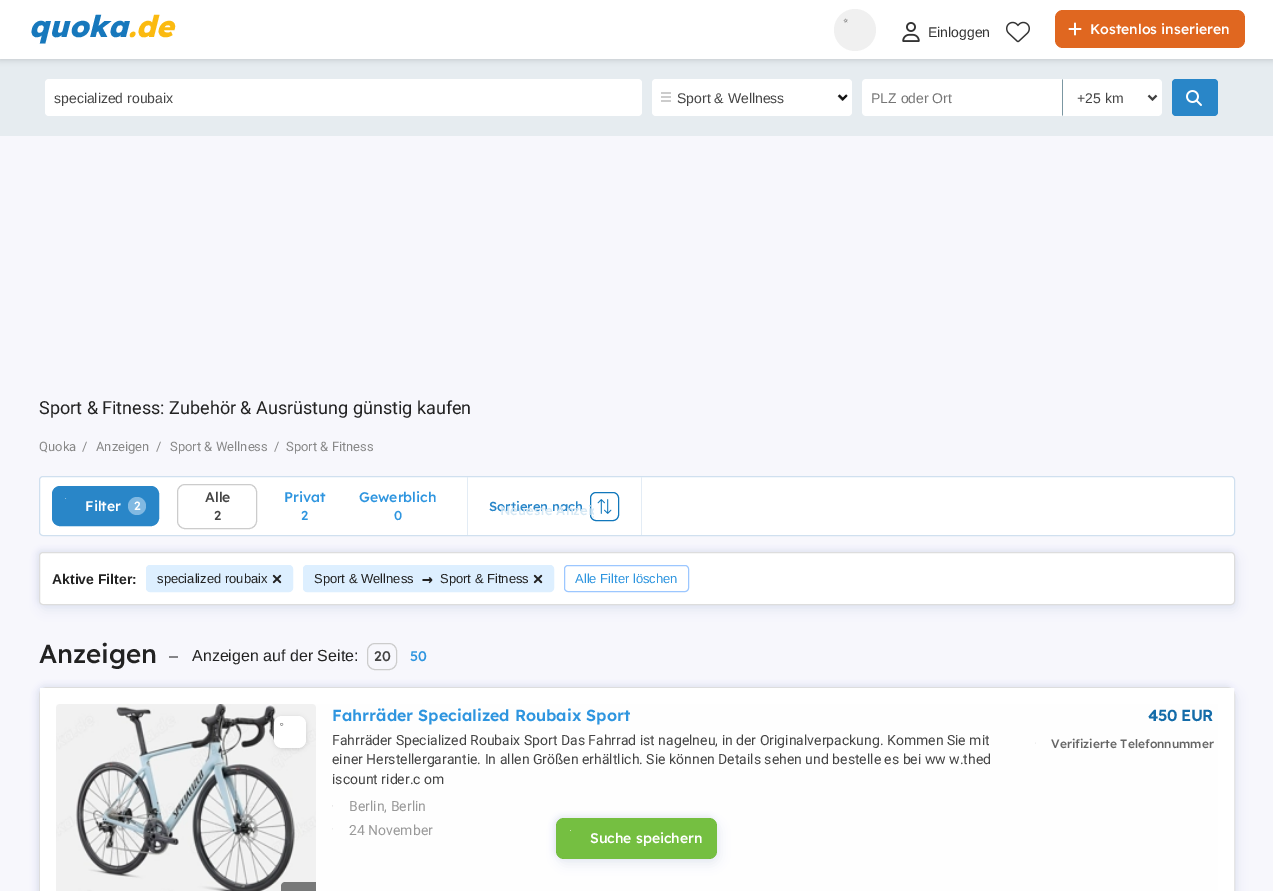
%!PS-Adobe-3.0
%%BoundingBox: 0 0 1273 891
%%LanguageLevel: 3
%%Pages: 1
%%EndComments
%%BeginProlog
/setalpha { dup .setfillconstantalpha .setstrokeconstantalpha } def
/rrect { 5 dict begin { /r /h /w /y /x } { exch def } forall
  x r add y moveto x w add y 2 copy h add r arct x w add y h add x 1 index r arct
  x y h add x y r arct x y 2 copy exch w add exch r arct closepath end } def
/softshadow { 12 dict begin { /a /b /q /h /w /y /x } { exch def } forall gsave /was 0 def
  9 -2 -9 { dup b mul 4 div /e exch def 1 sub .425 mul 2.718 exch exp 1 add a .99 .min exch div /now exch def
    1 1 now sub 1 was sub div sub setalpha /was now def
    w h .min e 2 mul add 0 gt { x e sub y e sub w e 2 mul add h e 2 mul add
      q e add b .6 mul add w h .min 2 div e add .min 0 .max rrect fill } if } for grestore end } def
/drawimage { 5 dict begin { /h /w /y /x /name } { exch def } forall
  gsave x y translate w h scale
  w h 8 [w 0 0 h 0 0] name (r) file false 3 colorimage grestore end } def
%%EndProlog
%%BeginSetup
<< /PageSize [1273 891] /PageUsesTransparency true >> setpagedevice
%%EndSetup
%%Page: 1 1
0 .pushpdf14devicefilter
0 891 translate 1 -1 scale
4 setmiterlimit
0.969 0.969 0.988 setrgbcolor
0 0 1273 891 rectfill
0.902 0.925 0.941 setrgbcolor
0 59 1273 77 rectfill
0.125 0.129 0.141 setrgbcolor
0 -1 1273 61 0 3 0.18 softshadow
1 setgray
0 0 1273 59 rectfill
0.941 setgray
newpath 855 30 21 0 360 arc closepath fill
(images/1.raw) 843 18 5 5 drawimage
(images/2.raw) 902 22 18 20 drawimage
(images/3.raw) 1006 21 24 22 drawimage
0.878 0.404 0.125 setrgbcolor
1055 10 190 38 8 rrect fill
(images/4.raw) 1068 22 14 14 drawimage
1 setgray
45 79 597 37 4 rrect fill
652 79 200 37 4 rrect fill
(images/5.raw) 661 92 187 10 drawimage
0.75 setalpha
0 setgray
2 setlinewidth
newpath 838.5 95.5 moveto 842.5 99.5 lineto 846.5 95.5 lineto stroke
1 setalpha
1 setgray
newpath 866 79 moveto 1062 79 lineto 1062 116 lineto 866 116 lineto 864 116 862 114 862 112 curveto 862 83 lineto 862 81 864 79 866 79 curveto closepath fill
newpath 1062 79 moveto 1158 79 lineto 1160 79 1162 81 1162 83 curveto 1162 112 lineto 1162 114 1160 116 1158 116 curveto 1062 116 lineto closepath fill
0.482 0.592 0.635 setrgbcolor
newpath 1062 79 moveto 1062 116 lineto 1063 115 lineto 1063 80 lineto closepath fill
0.251 setgray
newpath 1148.5 95.5 moveto 1152.5 99.5 lineto 1156.5 95.5 lineto stroke
0.161 0.525 0.784 setrgbcolor
1172 79 46 37 4 rrect fill
(images/6.raw) 1186 90 16 16 drawimage
1 setgray
39.5 476.5 1195 59 3.5 rrect gsave fill grestore
0.816 0.878 0.937 setrgbcolor
1 setlinewidth
stroke
0.161 0.525 0.784 setrgbcolor
52.5 486.5 106 39 7.5 rrect gsave fill grestore
stroke
(images/7.raw) 65 498 2 1 drawimage
0.506 0.725 0.886 setrgbcolor
newpath 137 506 9 0 360 arc closepath fill
0.8 setgray
177.5 484.5 79 44 7.5 rrect stroke
0.89 0.925 0.961 setrgbcolor
467 477 1 58 rectfill
0.067 0.467 0.733 setrgbcolor
590.5 492.5 28 28 5.5 rrect stroke
(images/8.raw) 597 499 15 15 drawimage
0.89 0.925 0.961 setrgbcolor
641 477 1 58 rectfill
0.604 0.659 0.753 setrgbcolor
41 557 1196 53 4 5.5 0.2 softshadow
37 550 1196 53 4 3 0.2 softshadow
1 setgray
39.5 552.5 1195 52 3.5 rrect gsave fill grestore
0.867 setgray
stroke
0.867 0.937 1 setrgbcolor
146.5 565.5 146 26 3.5 rrect gsave fill grestore
stroke
(images/9.raw) 272 574 10 10 drawimage
303.5 565.5 250 26 3.5 rrect gsave fill grestore
stroke
(images/9.raw) 533 574 10 10 drawimage
0.612 0.78 1 setrgbcolor
564.5 565.5 124 26 3.5 rrect stroke
0.8 setgray
367.5 643.5 29 26 7.5 rrect stroke
0.604 0.659 0.753 setrgbcolor
41 692 1196 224 8 5.5 0.2 softshadow
37 685 1196 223 8 3 0.2 softshadow
0.996 setgray
39.5 687.5 1195 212 7.5 rrect gsave fill grestore
0.867 setgray
stroke
1 setgray
16 setlinewidth
48 696 1178 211 rectstroke
(images/10.raw) 56 704 260 187 drawimage
0.667 setgray
274 717 32 32 8 2.5 0.5 softshadow
1 setgray
274 716 32 32 8 rrect fill
(images/11.raw) 280 723 4 3 drawimage
0.471 0.475 0.475 setrgbcolor
newpath 285 882 moveto 316 882 lineto 316 891 lineto 316 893 314 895 312 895 curveto 281 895 lineto 281 886 lineto 281 884 283 882 285 882 curveto closepath fill
(images/12.raw) 1035 742 1 2 drawimage
(images/13.raw) 332 805 1 2 drawimage
(images/14.raw) 332 828 1 2 drawimage
gsave
newpath 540 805 moveto 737 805 lineto 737 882 lineto 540 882 lineto closepath 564 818 moveto 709 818 lineto 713.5 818 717 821.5 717 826 curveto 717 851 lineto 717 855.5 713.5 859 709 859 curveto 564 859 lineto 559.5 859 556 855.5 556 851 curveto 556 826 lineto 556 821.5 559.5 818 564 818 curveto closepath eoclip newpath
0.604 0.659 0.753 setrgbcolor
558 823 161 41 8 5.5 0.2 softshadow
grestore
gsave
newpath 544 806 moveto 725 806 lineto 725 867 lineto 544 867 lineto closepath 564 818 moveto 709 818 lineto 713.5 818 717 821.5 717 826 curveto 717 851 lineto 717 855.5 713.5 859 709 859 curveto 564 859 lineto 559.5 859 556 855.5 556 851 curveto 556 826 lineto 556 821.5 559.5 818 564 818 curveto closepath eoclip newpath
0.604 0.659 0.753 setrgbcolor
554 816 161 41 8 3 0.2 softshadow
grestore
0.85 setalpha
0.365 0.706 0.125 setrgbcolor
556 818 161 41 8 rrect fill
1 setalpha
0.804 0.91 0.733 setrgbcolor
570 830 1 1 rectfill
/Lexend-ExtraBoldItalic [30 0 0 -30 0 0] selectfont
0.09 0.471 0.737 setrgbcolor
29 37 moveto (quoka) show
0.984 0.729 0.063 setrgbcolor
128 37 moveto (.de) show
/LiberationSans-Regular [14 0 0 -14 0 0] selectfont
0.2 setgray
928 37 moveto (Einloggen) show
/Lexend-Medium [14 0 0 -14 0 0] selectfont
1 setgray
1090 34 moveto (Kostenlos inserieren) show
/LiberationSans-Regular [14 0 0 -14 0 0] selectfont
0.267 setgray
54 103 moveto (specialized roubaix) show
677 103 moveto (Sport & Wellness) show
0.459 setgray
871 103 moveto (PLZ oder Ort) show
0.267 setgray
1077 103 moveto (+25 km) show
/Roboto-Regular [18 0 0 -18 0 0] selectfont
0.133 setgray
39 414 moveto (Sport & Fitness: Zubehör & Ausrüstung günstig kaufen) show
/Roboto-Regular [13 0 0 -13 0 0] selectfont
0.533 setgray
39 451 moveto (Quoka) show
82 451 moveto (/) show
96 451 moveto (Anzeigen) show
156 451 moveto (/) show
170 451 moveto (Sport & Wellness) show
274 451 moveto (/) show
286 451 moveto (Sport & Fitness) show
/Lexend-Medium [14 0 0 -14 0 0] selectfont
1 setgray
85 511 moveto (Filter) show
/Lexend-Medium [12 0 0 -12 0 0] selectfont
134 510 moveto (2) show
/Lexend-Medium [14 0 0 -14 0 0] selectfont
0.267 setgray
205 502 moveto (Alle) show
/Lexend-Medium [13 0 0 -13 0 0] selectfont
214 520 moveto (2) show
/Lexend-Medium [14 0 0 -14 0 0] selectfont
0.18 0.584 0.875 setrgbcolor
284 502 moveto (Privat) show
/Lexend-Medium [13 0 0 -13 0 0] selectfont
301 520 moveto (2) show
/Lexend-Medium [14 0 0 -14 0 0] selectfont
359 502 moveto (Gewerblich) show
/Lexend-Medium [13 0 0 -13 0 0] selectfont
394 520 moveto (0) show
0.161 0.525 0.784 setrgbcolor
489 511 moveto (Sortieren nach) show
gsave
500 501 94 19 rectclip
0.839 0.91 0.957 setrgbcolor
500 515 moveto (Neueste Anzeig) show
grestore
/LiberationSans-Bold [14 0 0 -14 0 0] selectfont
0.133 setgray
52 584 moveto (Aktive Filter:) show
/LiberationSans-Regular [13 0 0 -13 0 0] selectfont
157 583 moveto (specialized roubaix) show
314 583 moveto (Sport & Wellness) show
/DejaVuSansMono-Bold [18 0 0 -18 0 0] selectfont
422 585 moveto (→) show
/LiberationSans-Regular [13 0 0 -13 0 0] selectfont
440 583 moveto (Sport & Fitness) show
0.18 0.584 0.875 setrgbcolor
575 583 moveto (Alle Filter löschen) show
/Lexend-Medium [26 0 0 -26 0 0] selectfont
0.133 setgray
39 663 moveto (Anzeigen) show
/LiberationSans-Regular [16 0 0 -16 0 0] selectfont
169 661 moveto (–) show
192 661 moveto (Anzeigen auf der Seite:) show
/Lexend-Medium [14 0 0 -14 0 0] selectfont
0.267 setgray
374 661 moveto (20) show
0.18 0.584 0.875 setrgbcolor
410 661 moveto (50) show
/Lexend-SemiBold [16 0 0 -16 0 0] selectfont
332 721 moveto (Fahrräder Specialized Roubaix Sport) show
0.078 0.424 0.663 setrgbcolor
1148 721 moveto -0.5 0 (450 EUR) ashow
/Lexend-Medium [12 0 0 -12 0 0] selectfont
0.4 setgray
1051 748 moveto (Verifizierte Telefonnummer) show
/Roboto-Regular [14 0 0 -14 0 0] selectfont
0.267 setgray
332 745 moveto (Fahrräder Specialized Roubaix Sport Das Fahrrad ist nagelneu, in der Originalverpackung. Kommen Sie mit) show
332 764 moveto (einer Herstellergarantie. In allen Größen erhältlich. Sie können Details sehen und bestelle es bei ww w.thed) show
332 784 moveto (iscount rider.c om) show
0.6 setgray
349 811 moveto (Berlin, Berlin) show
349 835 moveto (24 November) show
/Lexend-Medium [14 0 0 -14 0 0] selectfont
1 setgray
590 843 moveto (Suche speichern) show
.poppdf14devicefilter showpage
%%EOF
